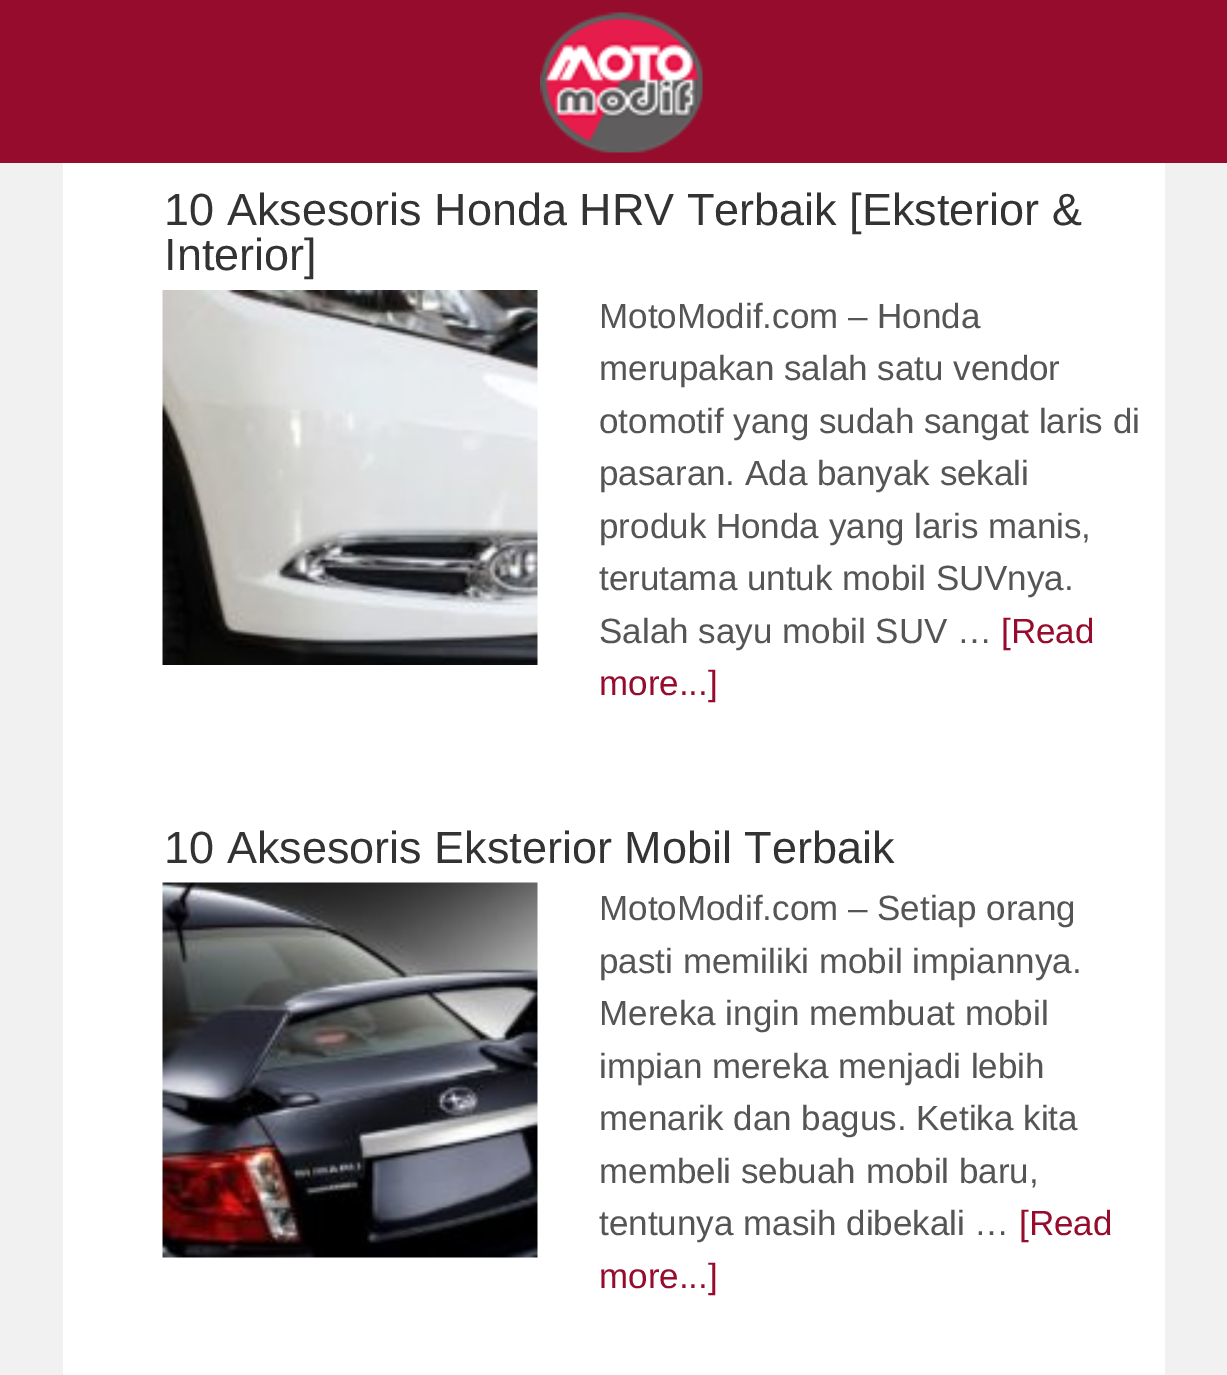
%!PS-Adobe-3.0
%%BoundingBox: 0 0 1227 1375
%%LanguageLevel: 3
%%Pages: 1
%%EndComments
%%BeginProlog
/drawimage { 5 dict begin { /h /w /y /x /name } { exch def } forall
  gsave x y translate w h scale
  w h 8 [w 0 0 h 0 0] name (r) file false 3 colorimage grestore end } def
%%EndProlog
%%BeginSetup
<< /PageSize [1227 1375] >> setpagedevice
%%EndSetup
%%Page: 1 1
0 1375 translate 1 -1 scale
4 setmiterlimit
0.945 setgray
0 0 1227 1375 rectfill
0.588 0.047 0.173 setrgbcolor
0 0 1227 163 rectfill
(images/1.raw) 540 12 163 141 drawimage
1 setgray
63 163 1102 1212 rectfill
(images/2.raw) 162 290 376 375 drawimage
(images/3.raw) 162 882 376 376 drawimage
/LiberationSans-Regular [45 0 0 -45 0 0] selectfont
0.2 setgray
164 225 moveto (10 Aksesoris Honda HRV Terbaik [Eksterior &) show
164 270 moveto (Interior]) show
/LiberationSans-Regular [35 0 0 -35 0 0] selectfont
0.333 setgray
599 328 moveto (MotoModif.com – Honda) show
599 380 moveto (merupakan salah satu vendor) show
599 433 moveto (otomotif yang sudah sangat laris di) show
599 485 moveto (pasaran. Ada banyak sekali) show
599 538 moveto (produk Honda yang laris manis,) show
599 590 moveto (terutama untuk mobil SUVnya.) show
599 643 moveto (Salah sayu mobil SUV …) show
0.588 0.047 0.173 setrgbcolor
1001 643 moveto ([Read) show
599 695 moveto (more...]) show
/LiberationSans-Regular [45 0 0 -45 0 0] selectfont
0.2 setgray
164 863 moveto (10 Aksesoris Eksterior Mobil Terbaik) show
/LiberationSans-Regular [35 0 0 -35 0 0] selectfont
0.333 setgray
599 920 moveto (MotoModif.com – Setiap orang) show
599 973 moveto (pasti memiliki mobil impiannya.) show
599 1025 moveto (Mereka ingin membuat mobil) show
599 1078 moveto (impian mereka menjadi lebih) show
599 1130 moveto (menarik dan bagus. Ketika kita) show
599 1183 moveto (membeli sebuah mobil baru,) show
599 1235 moveto (tentunya masih dibekali …) show
0.588 0.047 0.173 setrgbcolor
1019 1235 moveto ([Read) show
599 1288 moveto (more...]) show
showpage
%%EOF
